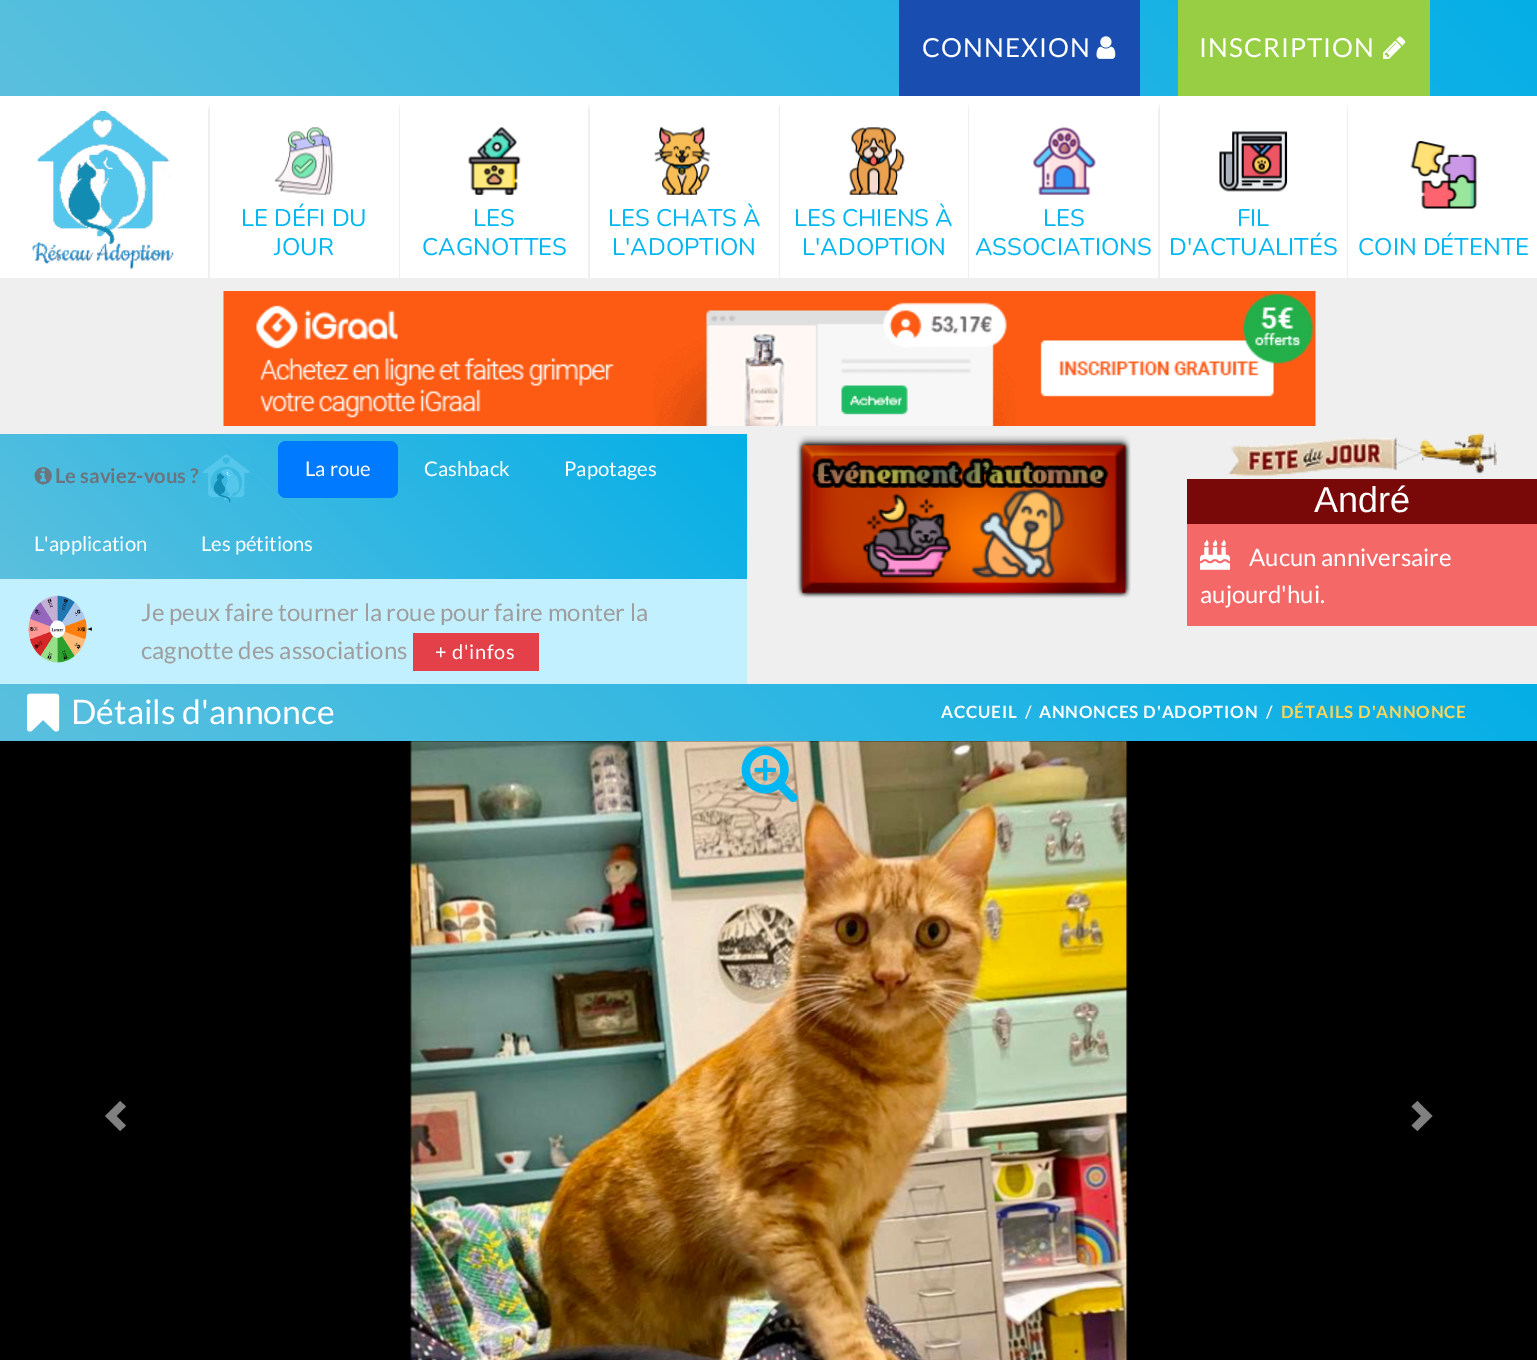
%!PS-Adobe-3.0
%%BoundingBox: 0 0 1537 1360
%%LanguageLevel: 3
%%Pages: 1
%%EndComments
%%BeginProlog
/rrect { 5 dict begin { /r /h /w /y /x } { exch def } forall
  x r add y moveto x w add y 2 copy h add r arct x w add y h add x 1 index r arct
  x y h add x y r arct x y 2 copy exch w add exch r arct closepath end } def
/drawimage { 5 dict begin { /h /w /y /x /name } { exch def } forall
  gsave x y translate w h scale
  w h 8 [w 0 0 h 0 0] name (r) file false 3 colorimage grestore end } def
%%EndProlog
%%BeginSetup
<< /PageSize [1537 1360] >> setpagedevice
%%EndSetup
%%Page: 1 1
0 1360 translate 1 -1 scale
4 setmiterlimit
1 setgray
0 0 1537 1360 rectfill
gsave newpath 0 0 moveto 1537 0 lineto 1537 96 lineto 0 96 lineto closepath clip newpath
<< /ShadingType 2 /ColorSpace /DeviceRGB /Coords [1177 -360 360 456] /Extend [true true] /Function << /FunctionType 2 /Domain [0 1] /C0 [0.016 0.686 0.906] /C1 [0.357 0.753 0.871] /N 1 >> >> shfill grestore
0.098 0.306 0.69 setrgbcolor
899 0 241 96 rectfill
(images/1.raw) 1096 36 20 23 drawimage
0.596 0.808 0.267 setrgbcolor
1178 0 252 96 rectfill
(images/2.raw) 1383 36 23 23 drawimage
0.937 setgray
newpath 210 104 moveto 210 284 lineto 208 278 lineto 208 110 lineto closepath fill
0 278 210 6 rectfill
(images/3.raw) 32 111 142 159 drawimage
newpath 400 104 moveto 400 284 lineto 399 278 lineto 399 110 lineto closepath fill
210 278 191 6 rectfill
(images/4.raw) 274 127 60 68 drawimage
newpath 590 104 moveto 590 284 lineto 588 278 lineto 588 110 lineto closepath fill
401 278 189 6 rectfill
(images/5.raw) 468 127 53 68 drawimage
newpath 780 104 moveto 780 284 lineto 778 278 lineto 778 110 lineto closepath fill
590 278 190 6 rectfill
1 setgray
778 110 1 168 rectfill
(images/6.raw) 654 127 56 68 drawimage
0.937 setgray
newpath 969 104 moveto 969 284 lineto 968 278 lineto 968 110 lineto closepath fill
780 278 189 6 rectfill
(images/7.raw) 849 127 56 68 drawimage
newpath 1160 104 moveto 1160 284 lineto 1158 278 lineto 1158 110 lineto closepath fill
969 278 191 6 rectfill
(images/8.raw) 1033 127 63 68 drawimage
newpath 1348 104 moveto 1348 284 lineto 1347 278 lineto 1347 110 lineto closepath fill
1160 278 377 6 rectfill
(images/9.raw) 1219 131 69 61 drawimage
(images/10.raw) 1410 141 68 68 drawimage
0 284 1537 150 rectfill
(images/11.raw) 223 291 1093 135 drawimage
747 434 790 250 rectfill
gsave newpath 0 434 moveto 747 434 lineto 747 579 lineto 0 579 lineto closepath clip newpath
<< /ShadingType 2 /ColorSpace /DeviceRGB /Coords [597 283 150 729] /Extend [true true] /Function << /FunctionType 2 /Domain [0 1] /C0 [0.016 0.686 0.906] /C1 [0.357 0.753 0.871] /N 1 >> >> shfill grestore
(images/12.raw) 34 467 18 18 drawimage
(images/13.raw) 202 454 49 49 drawimage
0 0.482 1 setrgbcolor
278 441 120 57 8 rrect fill
0.765 0.941 1 setrgbcolor
0 579 747 105 rectfill
(images/14.raw) 28 595 64 68 drawimage
0.894 0.251 0.286 setrgbcolor
413 633 126 38 rectfill
(images/15.raw) 796 435 335 163 drawimage
(images/16.raw) 1228 433 269 43 drawimage
0.475 0.031 0.031 setrgbcolor
1187 479 350 45 rectfill
0.957 0.408 0.408 setrgbcolor
1187 524 350 102 rectfill
(images/17.raw) 1200 539 30 31 drawimage
gsave newpath 0 684 moveto 1537 684 lineto 1537 741 lineto 0 741 lineto closepath clip newpath
<< /ShadingType 2 /ColorSpace /DeviceRGB /Coords [1167 314 370 1111] /Extend [true true] /Function << /FunctionType 2 /Domain [0 1] /C0 [0.016 0.686 0.906] /C1 [0.357 0.753 0.871] /N 1 >> >> shfill grestore
(images/18.raw) 27 693 33 39 drawimage
0 setgray
0 741 1537 619 rectfill
(images/19.raw) 410 741 718 619 drawimage
(images/20.raw) 741 746 57 57 drawimage
0.502 setgray
newpath 120 1101 moveto 105 1116 lineto 120 1131 lineto 126 1125.5 lineto 116.5 1116 lineto 126 1106.5 lineto closepath fill
newpath 1417.5 1101 moveto 1411.5 1106.5 lineto 1421 1116 lineto 1411.5 1125.5 lineto 1417.5 1131 lineto 1432.5 1116 lineto closepath fill
/Lato-Regular [26.25 0 0 -26.25 0 0] selectfont
1 setgray
922 57 moveto 1 0 (CONNEXION) ashow
1199 57 moveto 1 0 (INSCRIPTION) ashow
/Nunito-Regular [24 0 0 -24 0 0] selectfont
0.004 0.718 0.949 setrgbcolor
241 226 moveto (LE DÉFI DU) show
274 255 moveto (JOUR) show
473 226 moveto (LES) show
422 255 moveto (CAGNOTTES) show
608 226 moveto (LES CHATS À) show
612 255 moveto (L'ADOPTION) show
794 226 moveto (LES CHIENS À) show
802 255 moveto (L'ADOPTION) show
1043 226 moveto (LES) show
975 255 moveto (ASSOCIATIONS) show
1237 226 moveto (FIL) show
1169 255 moveto (D'ACTUALITÉS) show
1358 255 moveto (COIN DÉTENTE) show
/Lato-Bold [20.25 0 0 -20.25 0 0] selectfont
0.424 0.459 0.49 setrgbcolor
55 483 moveto (Le saviez-vous ?) show
/Lato-Regular [20.25 0 0 -20.25 0 0] selectfont
1 setgray
305 476 moveto (La roue) show
424 476 moveto (Cashback) show
564 476 moveto (Papotages) show
34 551 moveto (L'application) show
201 551 moveto (Les pétitions) show
/Lato-Regular [24 0 0 -24 0 0] selectfont
0.62 setgray
141 621 moveto (Je peux faire tourner la roue pour faire monter la) show
141 659 moveto (cagnotte des associations) show
/Lato-Regular [20 0 0 -20 0 0] selectfont
1 setgray
435 659 moveto 0.75 0 (+ d'infos) ashow
/LiberationSans-Regular [36 0 0 -36 0 0] selectfont
1314 512 moveto (André) show
/Lato-Regular [24 0 0 -24 0 0] selectfont
1249 566 moveto (Aucun anniversaire) show
1200 603 moveto (aujourd'hui.) show
/Lato-Regular [33.75 0 0 -33.75 0 0] selectfont
71 724 moveto (Détails d'annonce) show
/Lato-Bold [16.9 0 0 -16.9 0 0] selectfont
941 718 moveto 0.8 0 (ACCUEIL) ashow
0.933 setgray
1025 718 moveto 0.8 0 (/) ashow
1 setgray
1039 718 moveto 0.8 0 (ANNONCES D'ADOPTION) ashow
0.933 setgray
1266 718 moveto 0.8 0 (/) ashow
1 0.839 0.345 setrgbcolor
1281 718 moveto 0.8 0 (DÉTAILS D'ANNONCE) ashow
showpage
%%EOF
